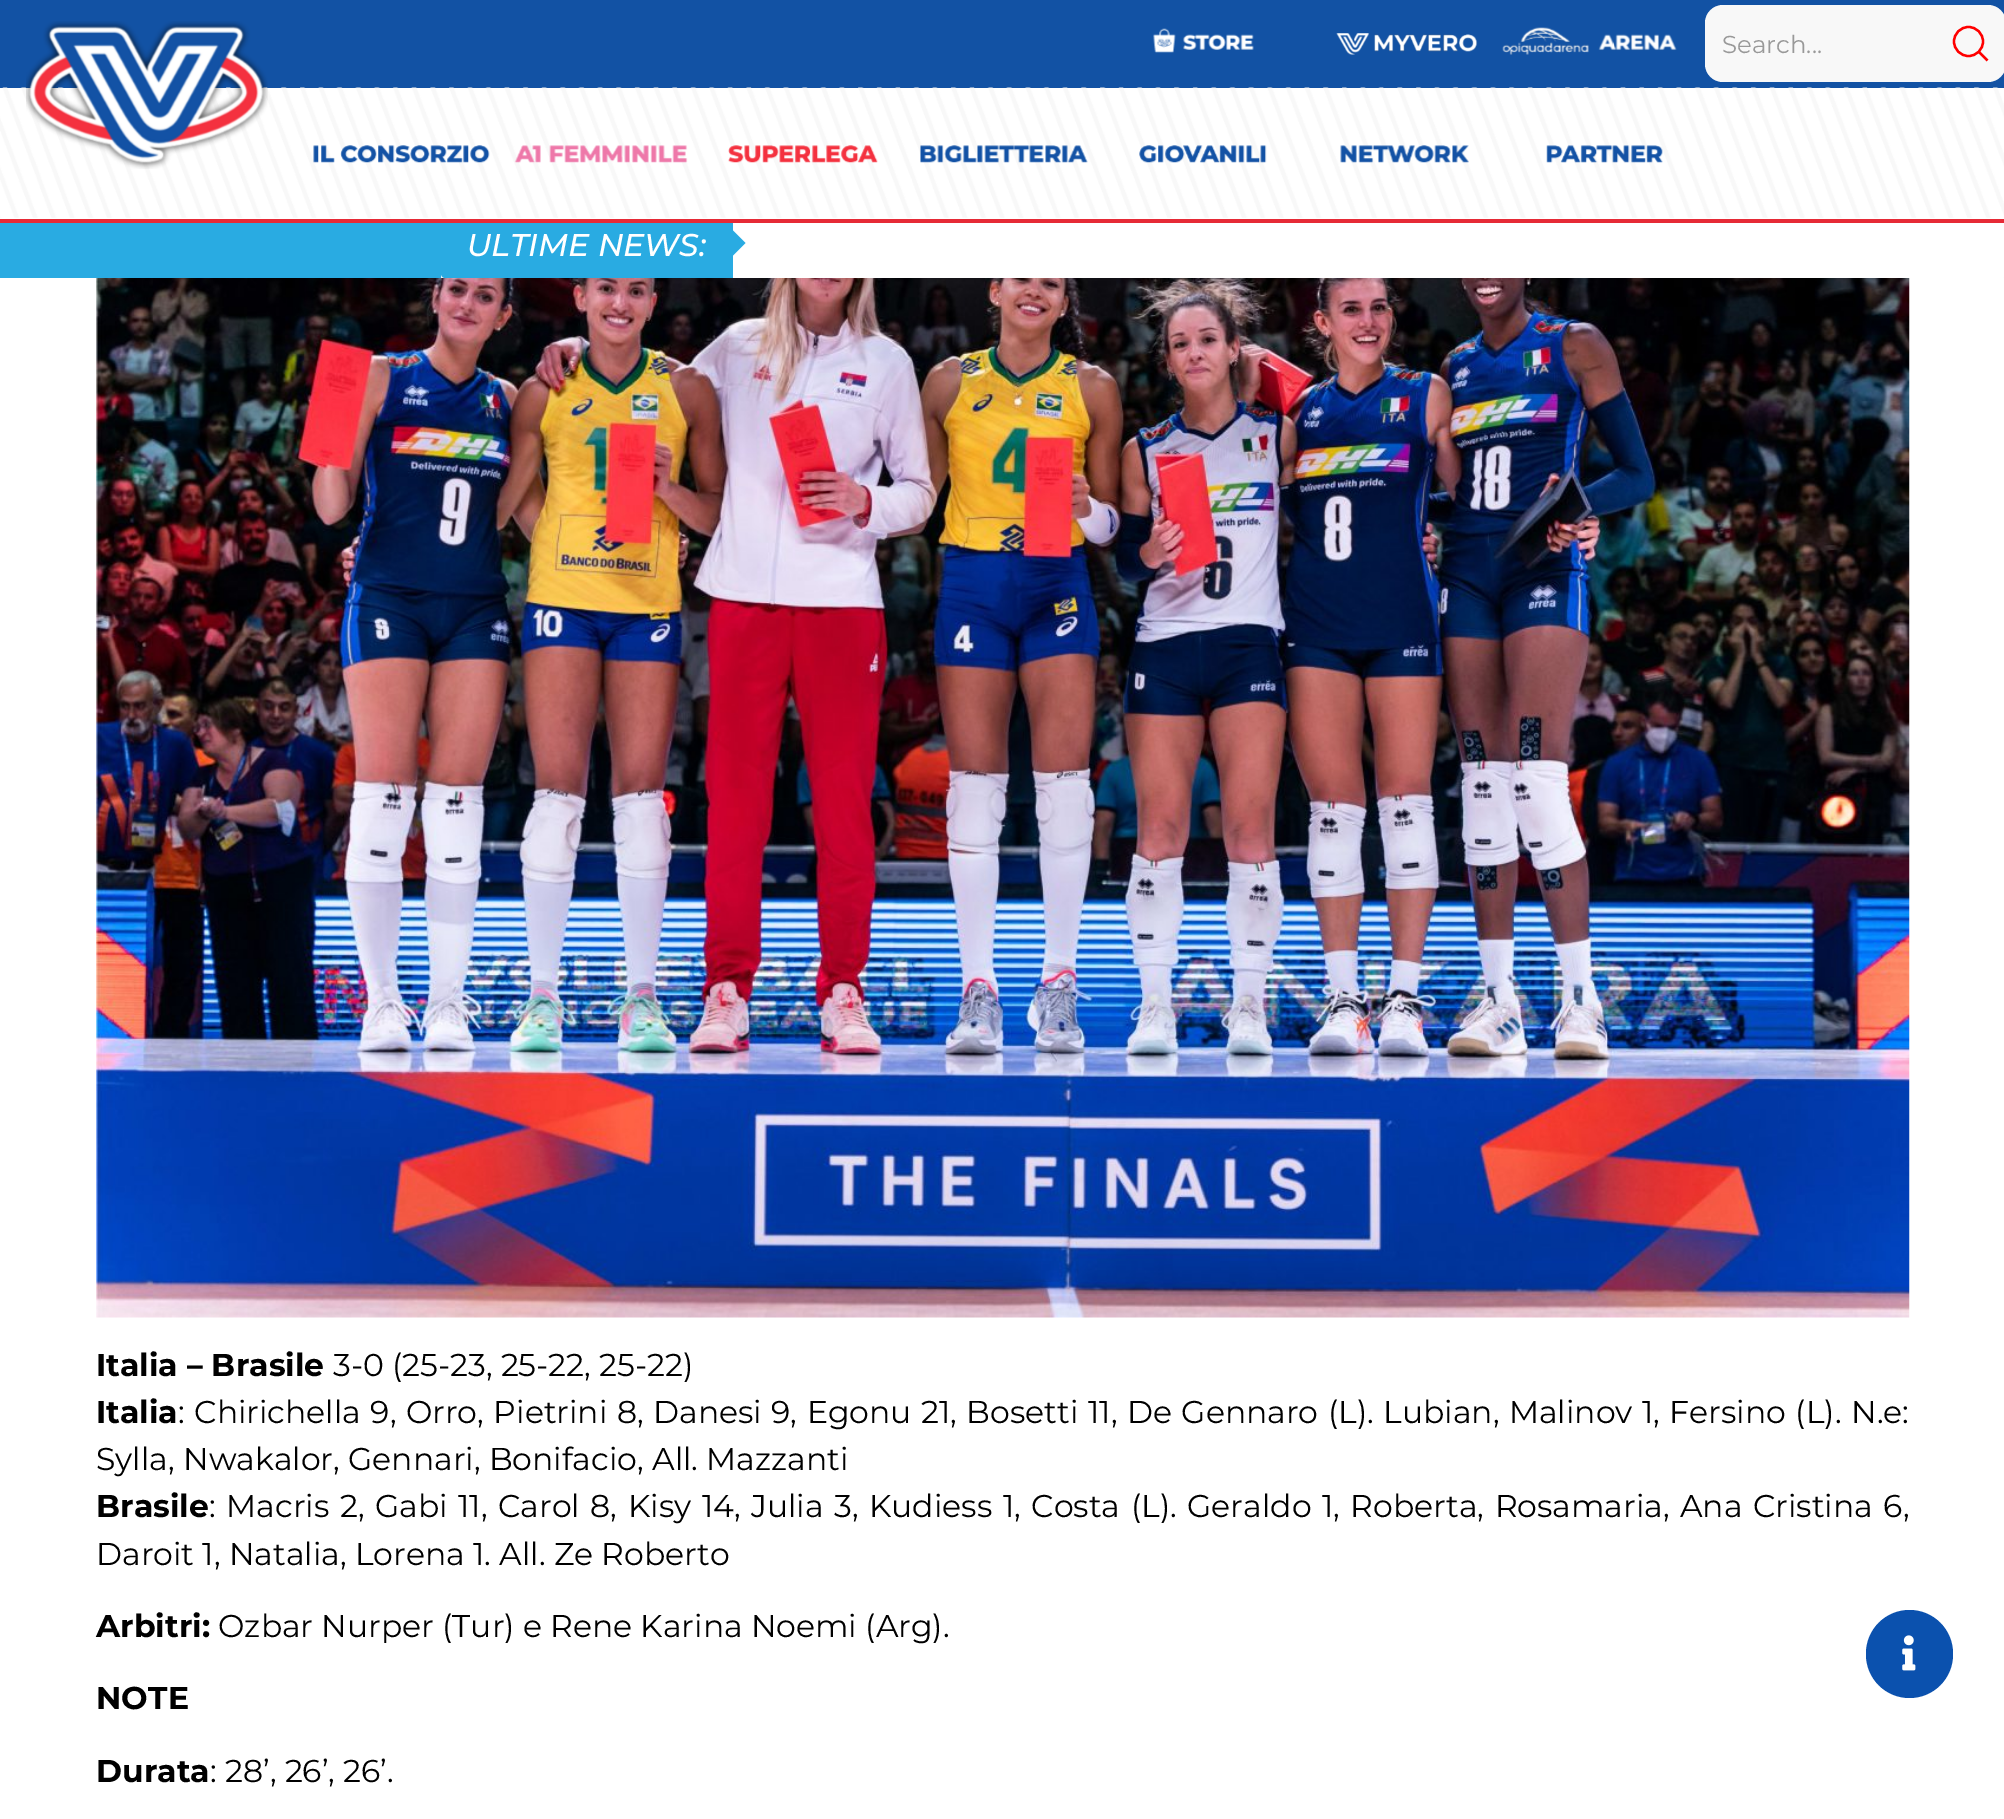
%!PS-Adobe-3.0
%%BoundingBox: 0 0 2004 1819
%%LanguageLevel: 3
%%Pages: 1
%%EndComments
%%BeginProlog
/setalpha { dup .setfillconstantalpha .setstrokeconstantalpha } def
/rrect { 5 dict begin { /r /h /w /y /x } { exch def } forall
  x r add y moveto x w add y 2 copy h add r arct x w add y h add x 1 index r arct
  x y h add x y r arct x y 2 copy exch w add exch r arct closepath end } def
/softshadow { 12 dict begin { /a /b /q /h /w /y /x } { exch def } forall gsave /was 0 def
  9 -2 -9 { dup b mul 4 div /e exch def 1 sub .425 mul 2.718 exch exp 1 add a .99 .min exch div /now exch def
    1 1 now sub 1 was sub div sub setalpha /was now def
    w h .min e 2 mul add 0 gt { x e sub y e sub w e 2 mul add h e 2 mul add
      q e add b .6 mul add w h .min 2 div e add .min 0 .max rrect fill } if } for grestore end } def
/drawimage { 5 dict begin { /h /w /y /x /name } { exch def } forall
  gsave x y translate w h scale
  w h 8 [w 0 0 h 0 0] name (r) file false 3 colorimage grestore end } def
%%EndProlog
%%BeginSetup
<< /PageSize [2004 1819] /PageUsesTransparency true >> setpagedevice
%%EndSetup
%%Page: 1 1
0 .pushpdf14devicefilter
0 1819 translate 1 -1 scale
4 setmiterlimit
1 setgray
0 0 2004 1819 rectfill
0.161 0.671 0.886 setrgbcolor
0 223 2004 55 rectfill
1 setgray
441 208 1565 70 4 rrect fill
(images/13.raw) 96 278 1814 1040 drawimage
gsave
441 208 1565 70 rectclip
418 187 44 112 0 10.5 1 softshadow
1985 187 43 112 0 10.5 1 softshadow
grestore
0.161 0.671 0.886 setrgbcolor
newpath 445 208 moveto 733 208 lineto 733 278 lineto 445 278 lineto 443 278 441 276 441 274 curveto 441 212 lineto 441 210 443 208 445 208 curveto closepath fill
0.902 0.165 0.212 setrgbcolor
0 219 2004 4 rectfill
0.071 0.322 0.643 setrgbcolor
0 0 2004 88 rectfill
1 setgray
441 208 292 11 rectfill
(images/5.raw) 0 87 2004 131 drawimage
(images/1.raw) 26 21 242 148 drawimage
(images/2.raw) 1153 28 101 25 drawimage
(images/3.raw) 1336 33 142 22 drawimage
(images/4.raw) 1502 27 175 28 drawimage
0.973 setgray
1705 5 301 77 18 rrect fill
1 0 0 setrgbcolor
2.3 setlinewidth
newpath 1968.5 41.5 14.5 0 360 arc closepath stroke
newpath 1979 52 moveto 1987.5 60.5 lineto closepath stroke
(images/6.raw) 313 145 177 18 drawimage
(images/7.raw) 514 145 174 18 drawimage
(images/8.raw) 728 145 150 18 drawimage
(images/9.raw) 920 145 168 18 drawimage
(images/10.raw) 1139 145 128 18 drawimage
(images/11.raw) 1340 145 129 18 drawimage
(images/12.raw) 1546 145 117 18 drawimage
0.161 0.671 0.886 setrgbcolor
newpath 731.5 257 moveto 731.5 229 lineto 745.5 243 lineto closepath fill
0.043 0.318 0.682 setrgbcolor
1866 1610 87 88 43.5 rrect fill
(images/14.raw) 1902 1635 14 36 drawimage
/Montserrat-Regular [24.5 0 0 -24.5 0 0] selectfont
0.6 setgray
1722 53 moveto (Search...) show
/Montserrat-MediumItalic [31.5 0 0 -31.5 0 0] selectfont
1 setgray
467 256 moveto (ULTIME NEWS:) show
/Montserrat-Bold [31.5 0 0 -31.5 0 0] selectfont
0 setgray
96 1376 moveto (Italia – Brasile) show
/Montserrat-Regular [31.5 0 0 -31.5 0 0] selectfont
333 1376 moveto (3-0 \(25-23, 25-22, 25-22\)) show
/Montserrat-Bold [31.5 0 0 -31.5 0 0] selectfont
96 1423 moveto (Italia) show
/Montserrat-Regular [31.5 0 0 -31.5 0 0] selectfont
178 1423 moveto 1.25 0 32 (: Chirichella 9, Orro, Pietrini 8, Danesi 9, Egonu 21, Bosetti 11, De Gennaro \(L\). Lubian, Malinov 1, Fersino \(L\). N.e:) widthshow
96 1470 moveto (Sylla, Nwakalor, Gennari, Bonifacio, All. Mazzanti) show
/Montserrat-Bold [31.5 0 0 -31.5 0 0] selectfont
96 1517 moveto (Brasile) show
/Montserrat-Regular [31.5 0 0 -31.5 0 0] selectfont
209 1517 moveto 2.3 0 32 (: Macris 2, Gabi 11, Carol 8, Kisy 14, Julia 3, Kudiess 1, Costa \(L\). Geraldo 1, Roberta, Rosamaria, Ana Cristina 6,) widthshow
96 1565 moveto (Daroit 1, Natalia, Lorena 1. All. Ze Roberto) show
/Montserrat-Bold [31.5 0 0 -31.5 0 0] selectfont
96 1637 moveto (Arbitri:) show
/Montserrat-Regular [31.5 0 0 -31.5 0 0] selectfont
218 1637 moveto (Ozbar Nurper \(Tur\) e Rene Karina Noemi \(Arg\).) show
/Montserrat-Bold [31.5 0 0 -31.5 0 0] selectfont
96 1709 moveto (NOTE) show
96 1782 moveto (Durata) show
/Montserrat-Regular [31.5 0 0 -31.5 0 0] selectfont
210 1782 moveto (: 28’, 26’, 26’.) show
.poppdf14devicefilter showpage
%%EOF
